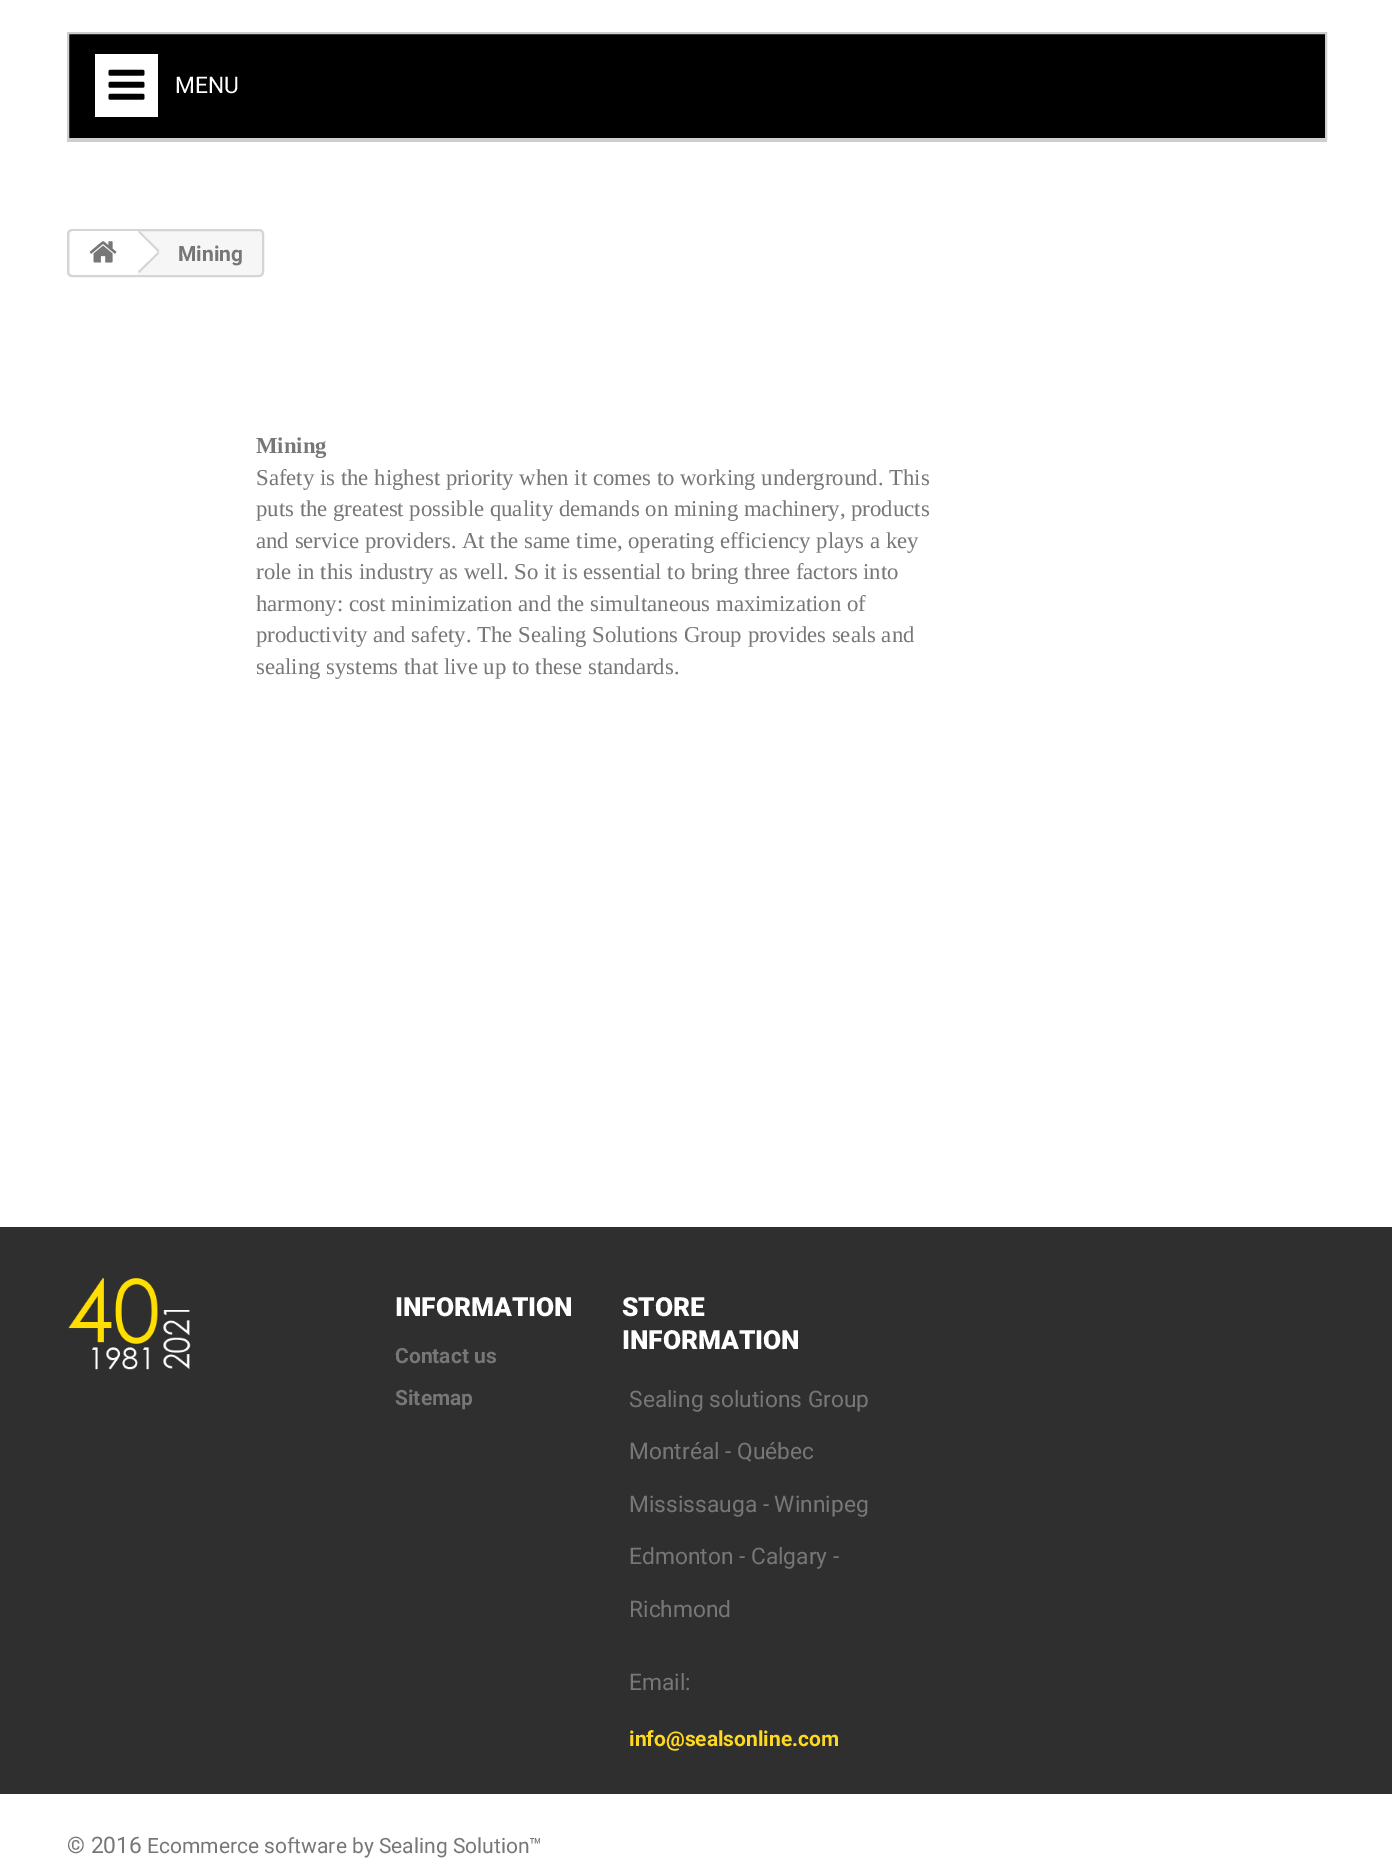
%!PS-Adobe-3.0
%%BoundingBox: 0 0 1392 1864
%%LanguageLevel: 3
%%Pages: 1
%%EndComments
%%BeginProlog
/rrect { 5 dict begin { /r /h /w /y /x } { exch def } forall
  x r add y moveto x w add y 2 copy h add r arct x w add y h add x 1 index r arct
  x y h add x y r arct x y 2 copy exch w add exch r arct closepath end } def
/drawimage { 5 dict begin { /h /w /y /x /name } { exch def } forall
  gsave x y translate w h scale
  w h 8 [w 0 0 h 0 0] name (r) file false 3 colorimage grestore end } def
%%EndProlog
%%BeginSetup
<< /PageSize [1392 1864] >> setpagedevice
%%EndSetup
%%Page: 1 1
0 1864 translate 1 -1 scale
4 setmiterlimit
1 setgray
0 0 1392 1864 rectfill
0 setgray
newpath 68 33 moveto 1326 33 lineto 1326 139 lineto 68 139 lineto closepath gsave fill grestore
0.808 setgray
2 setlinewidth
stroke
1 setgray
95 54 63 63 rectfill
(images/1.raw) 108 69 37 31 drawimage
0.808 setgray
67 140 1260 2 rectfill
0.965 setgray
68 230 195 46 4 rrect gsave fill grestore
0.839 0.831 0.831 setrgbcolor
stroke
1 setgray
newpath 75 231 moveto 137 231 lineto 137 275 lineto 75 275 lineto 72 275 70 273 70 270 curveto 70 236 lineto 70 233 72 231 75 231 curveto closepath fill
(images/2.raw) 89 241 28 22 drawimage
newpath 141 232 moveto 158 249 lineto 159 251 159 253 158 254 curveto 141 272 lineto 139 273 137 273 136 272 curveto 118 254 lineto 117 253 117 251 118 249 curveto 136 232 lineto 137 231 139 231 141 232 curveto closepath fill
0.839 0.831 0.831 setrgbcolor
newpath 139.5 231 moveto 159.5 250.5 lineto 158 252 lineto 138 232 lineto closepath 158 252 moveto 159.5 253 lineto 139.5 273 lineto 138 271.5 lineto closepath fill
0.184 setgray
0 1227 1392 567 rectfill
(images/3.raw) 68 1278 123 92 drawimage
/Roboto-Regular [22.75 0 0 -22.75 0 0] selectfont
1 setgray
175 93 moveto (MENU) show
/Roboto-Bold [21 0 0 -21 0 0] selectfont
0.467 setgray
178 261 moveto (Mining) show
/LiberationSerif-Bold [22.75 0 0 -22.75 0 0] selectfont
256 453 moveto (Mining) show
/LiberationSerif-Regular [22.75 0 0 -22.75 0 0] selectfont
256 485 moveto (Safety is the highest priority when it comes to working underground. This) show
256 516 moveto (puts the greatest possible quality demands on mining machinery, products) show
256 548 moveto (and service providers. At the same time, operating efficiency plays a key) show
256 579 moveto (role in this industry as well. So it is essential to bring three factors into) show
256 611 moveto (harmony: cost minimization and the simultaneous maximization of) show
256 642 moveto (productivity and safety. The Sealing Solutions Group provides seals and) show
256 674 moveto (sealing systems that live up to these standards.) show
/Roboto-Black [26.25 0 0 -26.25 0 0] selectfont
1 setgray
395 1316 moveto (INFORMATION) show
/Roboto-Bold [21 0 0 -21 0 0] selectfont
0.467 setgray
395 1363 moveto (Contact us) show
395 1405 moveto (Sitemap) show
/Roboto-Black [26.25 0 0 -26.25 0 0] selectfont
1 setgray
622 1316 moveto (STORE) show
622 1349 moveto (INFORMATION) show
/Roboto-Regular [22.75 0 0 -22.75 0 0] selectfont
0.467 setgray
629 1407 moveto (Sealing solutions Group) show
629 1459 moveto (Montréal - Québec) show
629 1512 moveto (Mississauga - Winnipeg) show
629 1564 moveto (Edmonton - Calgary -) show
629 1617 moveto (Richmond) show
629 1690 moveto (Email:) show
/Roboto-Bold [21 0 0 -21 0 0] selectfont
1 0.847 0.125 setrgbcolor
629 1746 moveto (info@sealsonline.com) show
/Roboto-Regular [22.75 0 0 -22.75 0 0] selectfont
0.467 setgray
67 1853 moveto (© 2016) show
/Roboto-Regular [21 0 0 -21 0 0] selectfont
147 1853 moveto (Ecommerce software by Sealing Solution™) show
showpage
%%EOF
